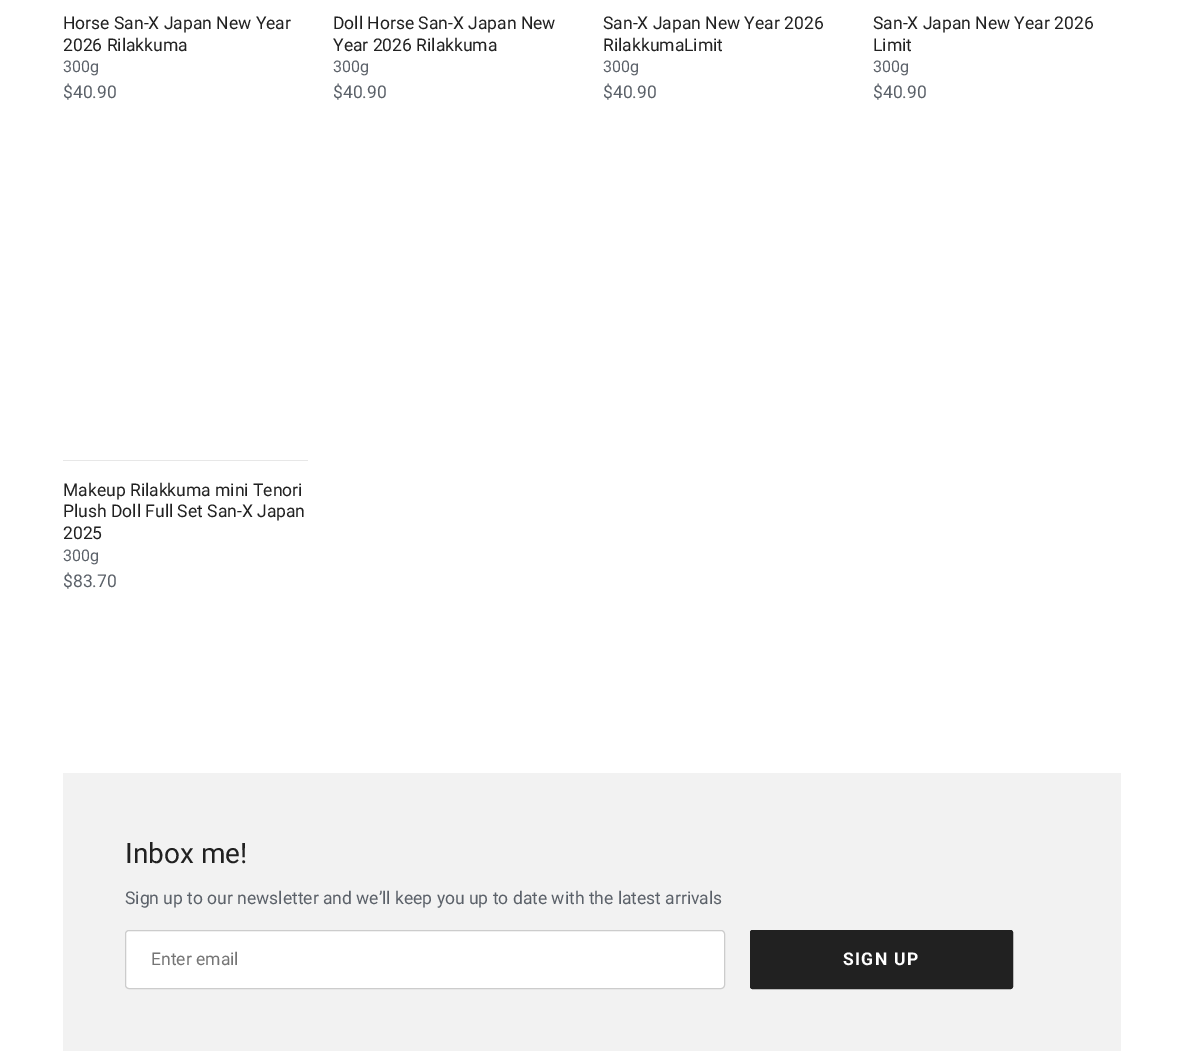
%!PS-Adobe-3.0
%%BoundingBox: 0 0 1183 1061
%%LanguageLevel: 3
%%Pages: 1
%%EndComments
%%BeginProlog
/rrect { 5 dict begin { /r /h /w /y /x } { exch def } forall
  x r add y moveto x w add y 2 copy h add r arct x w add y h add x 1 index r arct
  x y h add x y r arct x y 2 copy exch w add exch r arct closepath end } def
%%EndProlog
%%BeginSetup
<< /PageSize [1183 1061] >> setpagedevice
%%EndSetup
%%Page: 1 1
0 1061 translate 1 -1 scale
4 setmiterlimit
1 setgray
0 0 1183 1061 rectfill
0.906 setgray
63 460 245 1 rectfill
0.949 setgray
63 773 1058 278 rectfill
1 setgray
125.5 930.5 599 58 3.5 rrect gsave fill grestore
0.8 setgray
stroke
0.129 setgray
750.5 930.5 262 58 2 rrect gsave fill grestore
stroke
/Roboto-Regular [17.5 0 0 -17.5 0 0] selectfont
63 29 moveto (Horse San-X Japan New Year) show
63 51 moveto (2026 Rilakkuma) show
/Roboto-Regular [16 0 0 -16 0 0] selectfont
0.357 0.38 0.412 setrgbcolor
63 72 moveto (300g) show
/Roboto-Regular [17.5 0 0 -17.5 0 0] selectfont
63 98 moveto ($40.90) show
0.129 setgray
333 29 moveto (Doll Horse San-X Japan New) show
333 51 moveto (Year 2026 Rilakkuma) show
/Roboto-Regular [16 0 0 -16 0 0] selectfont
0.357 0.38 0.412 setrgbcolor
333 72 moveto (300g) show
/Roboto-Regular [17.5 0 0 -17.5 0 0] selectfont
333 98 moveto ($40.90) show
0.129 setgray
603 29 moveto (San-X Japan New Year 2026) show
603 51 moveto (RilakkumaLimit) show
/Roboto-Regular [16 0 0 -16 0 0] selectfont
0.357 0.38 0.412 setrgbcolor
603 72 moveto (300g) show
/Roboto-Regular [17.5 0 0 -17.5 0 0] selectfont
603 98 moveto ($40.90) show
0.129 setgray
873 29 moveto (San-X Japan New Year 2026) show
873 51 moveto (Limit) show
/Roboto-Regular [16 0 0 -16 0 0] selectfont
0.357 0.38 0.412 setrgbcolor
873 72 moveto (300g) show
/Roboto-Regular [17.5 0 0 -17.5 0 0] selectfont
873 98 moveto ($40.90) show
0.129 setgray
63 496 moveto (Makeup Rilakkuma mini Tenori) show
63 517 moveto (Plush Doll Full Set San-X Japan) show
63 539 moveto (2025) show
/Roboto-Regular [16 0 0 -16 0 0] selectfont
0.357 0.38 0.412 setrgbcolor
63 561 moveto (300g) show
/Roboto-Regular [17.5 0 0 -17.5 0 0] selectfont
63 587 moveto ($83.70) show
/Roboto-Regular [28 0 0 -28 0 0] selectfont
0.129 setgray
125 863 moveto (Inbox me!) show
/Roboto-Regular [17.5 0 0 -17.5 0 0] selectfont
0.357 0.38 0.412 setrgbcolor
125 904 moveto (Sign up to our newsletter and we’ll keep you up to date with the latest arrivals) show
0.459 setgray
151 965 moveto (Enter email) show
/Roboto-Bold [17.5 0 0 -17.5 0 0] selectfont
1 setgray
843 965 moveto 1.25 0 (SIGN UP) ashow
showpage
%%EOF
